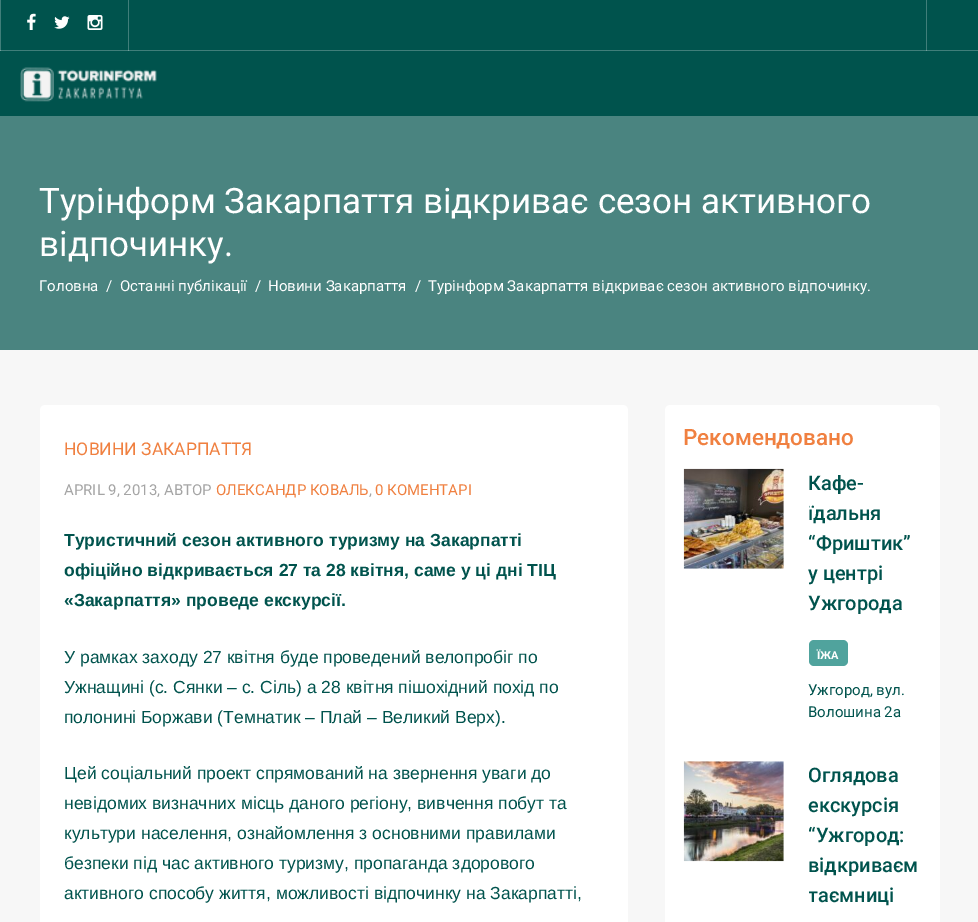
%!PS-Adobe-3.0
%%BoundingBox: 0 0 978 922
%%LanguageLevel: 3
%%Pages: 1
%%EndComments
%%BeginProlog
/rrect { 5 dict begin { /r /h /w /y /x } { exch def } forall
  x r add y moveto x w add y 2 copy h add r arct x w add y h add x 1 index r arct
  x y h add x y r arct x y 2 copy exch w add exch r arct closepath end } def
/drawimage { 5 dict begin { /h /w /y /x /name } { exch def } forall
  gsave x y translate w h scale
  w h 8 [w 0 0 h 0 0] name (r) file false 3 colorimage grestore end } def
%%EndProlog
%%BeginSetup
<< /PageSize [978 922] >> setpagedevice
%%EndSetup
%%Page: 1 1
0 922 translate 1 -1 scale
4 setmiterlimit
0.969 setgray
0 0 978 922 rectfill
0 0.325 0.302 setrgbcolor
1 0 977 50 rectfill
0.251 0.494 0.478 setrgbcolor
926 0 1 50 rectfill
0 0 1 50 rectfill
128 0 1 50 rectfill
(images/1.raw) 27 13 9 17 drawimage
(images/2.raw) 54 16 16 13 drawimage
(images/3.raw) 87 15 16 15 drawimage
0 0.325 0.302 setrgbcolor
0 51 978 65 rectfill
0.251 0.494 0.478 setrgbcolor
0 50 978 1 rectfill
0.439 0.62 0.608 setrgbcolor
926 50 1 1 rectfill
0 50 1 1 rectfill
128 50 1 1 rectfill
(images/4.raw) 20 67 137 35 drawimage
0.29 0.518 0.502 setrgbcolor
0 116 978 234 rectfill
1 setgray
40 405 588 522 5 rrect fill
665 405 275 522 5 rrect fill
(images/5.raw) 683 468 101 101 drawimage
0.314 0.639 0.616 setrgbcolor
809 640 39 26 5 rrect fill
(images/6.raw) 683 761 101 101 drawimage
/Roboto-Regular [35 0 0 -35 0 0] selectfont
1 setgray
39 213 moveto (Турінформ Закарпаття відкриває сезон активного) show
39 256 moveto (відпочинку.) show
/Roboto-Regular [15 0 0 -15 0 0] selectfont
39 291 moveto (Головна) show
106 291 moveto (/) show
120 291 moveto (Останні публікації) show
255 291 moveto (/) show
268 291 moveto (Новини Закарпаття) show
415 291 moveto (/) show
428 291 moveto (Турінформ Закарпаття відкриває сезон активного відпочинку.) show
/Roboto-Regular [17.5 0 0 -17.5 0 0] selectfont
0.941 0.502 0.251 setrgbcolor
64 455 moveto (НОВИНИ ЗАКАРПАТТЯ) show
/Roboto-Regular [15 0 0 -15 0 0] selectfont
0.647 setgray
64 495 moveto (APRIL 9, 2013, АВТОР) show
0.941 0.502 0.251 setrgbcolor
216 495 moveto (ОЛЕКСАНДР КОВАЛЬ) show
0.647 setgray
369 495 moveto (,) show
0.941 0.502 0.251 setrgbcolor
375 495 moveto (0 КОМЕНТАРІ) show
/LiberationSans-Bold [17.5 0 0 -17.5 0 0] selectfont
0 0.325 0.302 setrgbcolor
64 546 moveto (Туристичний сезон активного туризму на Закарпатті) show
64 576 moveto (офіційно відкривається 27 та 28 квітня, саме у ці дні ТІЦ) show
64 606 moveto («Закарпаття» проведе екскурсії.) show
/LiberationSans-Regular [17.5 0 0 -17.5 0 0] selectfont
64 663 moveto (У рамках заходу 27 квітня буде проведений велопробіг по) show
64 693 moveto (Ужнащині \(с. Сянки – с. Сіль\) а 28 квітня пішохідний похід по) show
64 723 moveto (полонині Боржави \(Темнатик – Плай – Великий Верх\).) show
64 779 moveto (Цей соціальний проект спрямований на звернення уваги до) show
64 809 moveto (невідомих визначних місць даного регіону, вивчення побут та) show
64 839 moveto (культури населення, ознайомлення з основними правилами) show
64 869 moveto (безпеки під час активного туризму, пропаганда здорового) show
64 899 moveto (активного способу життя, можливості відпочинку на Закарпатті,) show
/Roboto-Medium [22.5 0 0 -22.5 0 0] selectfont
0.941 0.502 0.251 setrgbcolor
683 445 moveto (Рекомендовано) show
/Roboto-Medium [20 0 0 -20 0 0] selectfont
0 0.325 0.302 setrgbcolor
808 490 moveto (Кафе-) show
gsave
809 469 111 150 rectclip
808 520 moveto (їдальня) show
grestore
808 550 moveto (“Фриштик”) show
808 580 moveto (у центрі) show
808 610 moveto (Ужгорода) show
/Roboto-Bold [11 0 0 -11 0 0] selectfont
1 setgray
817 659 moveto (ЇЖА) show
/Roboto-Regular [15 0 0 -15 0 0] selectfont
0 0.325 0.302 setrgbcolor
808 695 moveto (Ужгород, вул.) show
808 717 moveto (Волошина 2а) show
/Roboto-Medium [20 0 0 -20 0 0] selectfont
808 782 moveto (Оглядова) show
808 812 moveto (екскурсія) show
808 842 moveto (“Ужгород:) show
808 872 moveto (відкриваєм) show
gsave
809 761 111 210 rectclip
808 902 moveto (таємниці) show
grestore
showpage
%%EOF
